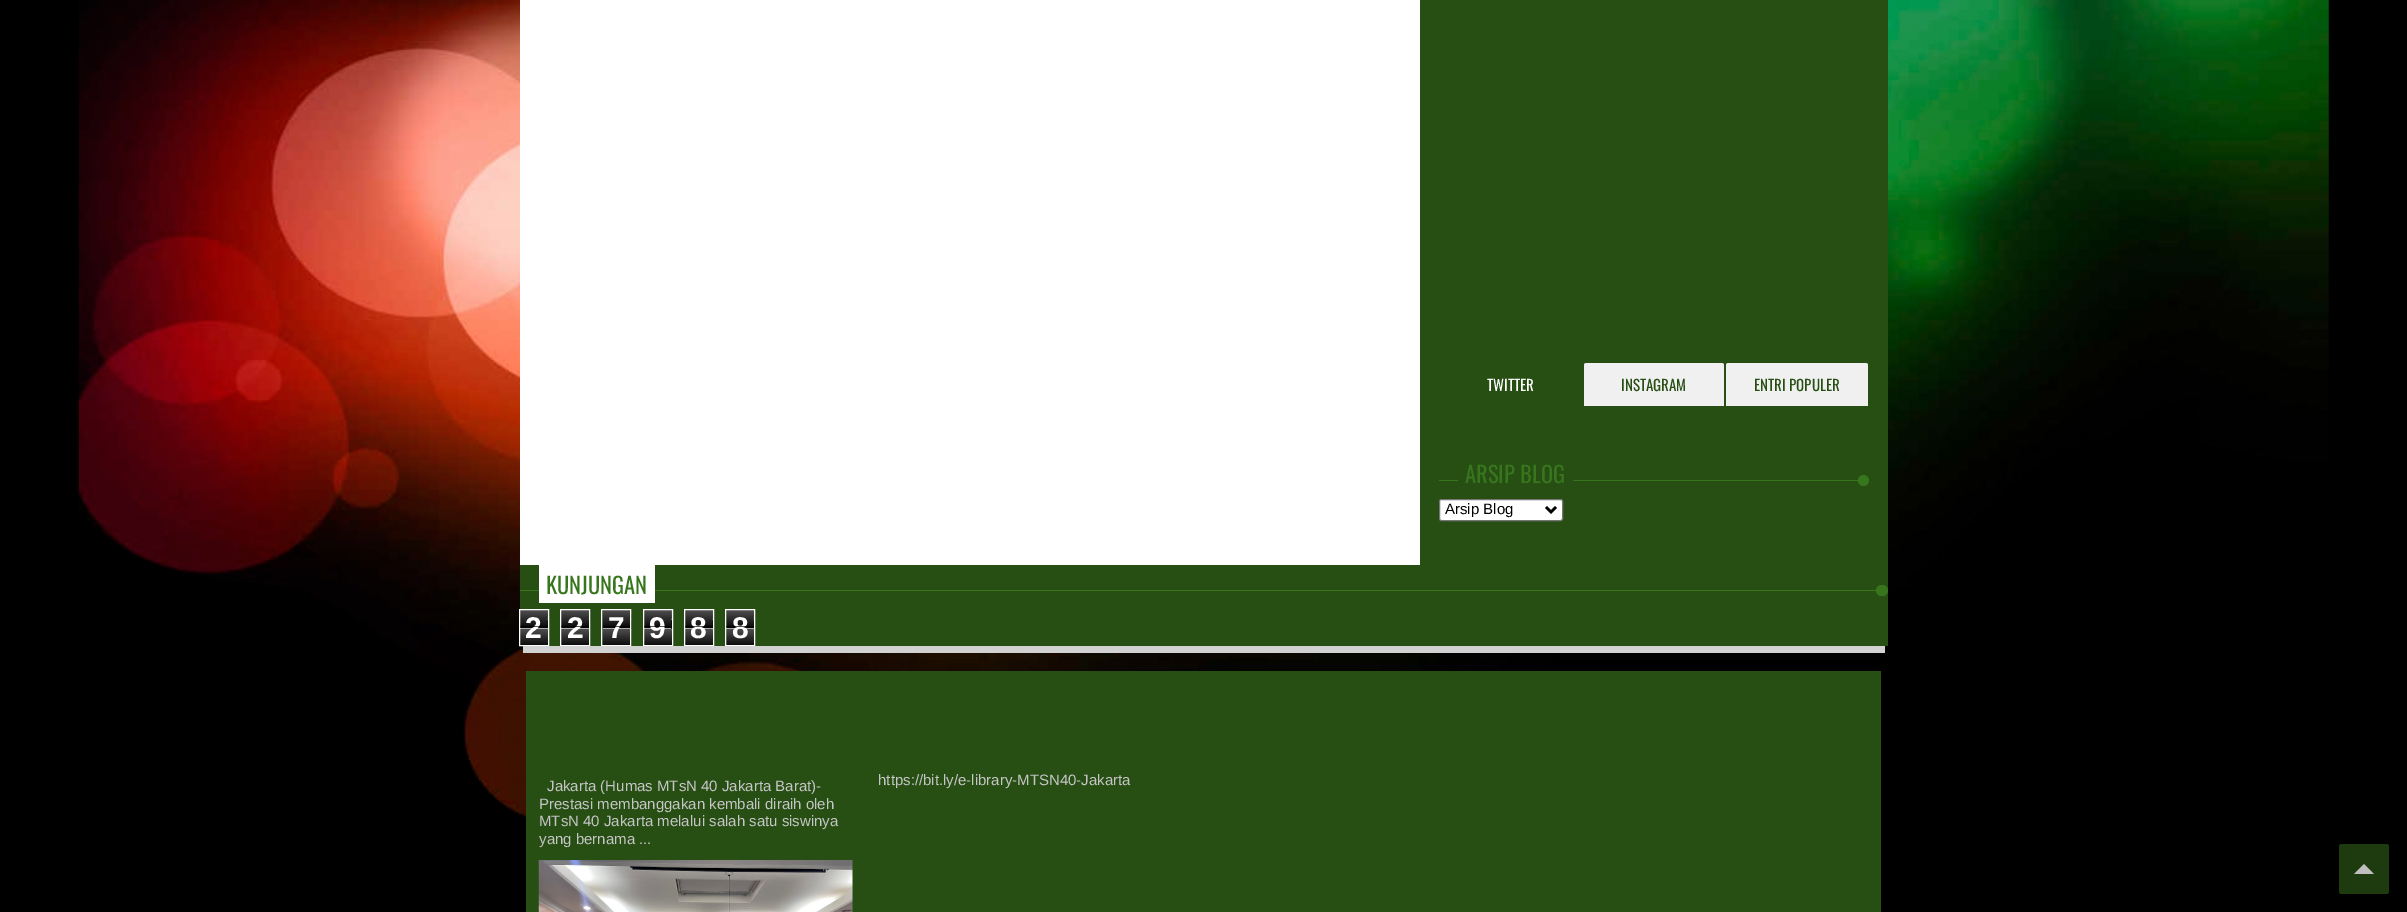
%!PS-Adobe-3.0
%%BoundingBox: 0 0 2407 912
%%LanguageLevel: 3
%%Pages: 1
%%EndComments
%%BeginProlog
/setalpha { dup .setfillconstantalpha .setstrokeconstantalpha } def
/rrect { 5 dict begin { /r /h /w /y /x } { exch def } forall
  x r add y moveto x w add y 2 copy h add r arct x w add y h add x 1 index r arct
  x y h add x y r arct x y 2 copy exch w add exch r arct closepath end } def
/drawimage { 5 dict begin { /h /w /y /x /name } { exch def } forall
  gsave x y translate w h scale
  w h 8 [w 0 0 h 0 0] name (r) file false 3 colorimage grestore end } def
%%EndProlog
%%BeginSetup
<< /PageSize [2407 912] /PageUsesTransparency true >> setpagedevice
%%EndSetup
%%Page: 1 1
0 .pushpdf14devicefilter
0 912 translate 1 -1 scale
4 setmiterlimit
0 setgray
0 0 2407 912 rectfill
(images/1.raw) 78 0 2251 876 drawimage
0.153 0.306 0.075 setrgbcolor
520 0 1368 646 rectfill
1 setgray
520 0 900 565 rectfill
0.941 setgray
newpath 1586.5 363 moveto 1721.5 363 lineto 1723 363 1724 364 1724 365.5 curveto 1724 406 lineto 1584 406 lineto 1584 365.5 lineto 1584 364 1585 363 1586.5 363 curveto closepath fill
newpath 1728.5 363 moveto 1865.5 363 lineto 1867 363 1868 364 1868 365.5 curveto 1868 406 lineto 1726 406 lineto 1726 365.5 lineto 1726 364 1727 363 1728.5 363 curveto closepath fill
0.22 0.463 0.114 setrgbcolor
1439 480 430 1 rectfill
0.153 0.306 0.075 setrgbcolor
1458 480 115 1 rectfill
0.22 0.463 0.114 setrgbcolor
newpath 1863.5 480.5 5.5 0 360 arc closepath fill
1 setgray
1439.5 499.5 123 21 2 rrect gsave fill grestore
0.463 setgray
stroke
0 setgray
2.5 setlinewidth
newpath 1546 507 moveto 1551 512 lineto 1556 507 lineto stroke
0.22 0.463 0.114 setrgbcolor
520 590 1368 1 rectfill
1 setgray
539 565 116 38 rectfill
0.22 0.463 0.114 setrgbcolor
1876 585 12 11 5.5 rrect fill
(images/2.raw) 520 610 28 37 drawimage
1 setgray
1 setlinewidth
519.5 609.5 29 36 rectstroke
(images/3.raw) 561 610 28 35 drawimage
560.5 609.5 29 36 rectstroke
(images/4.raw) 602 610 30 36 drawimage
601.5 609.5 29 36 rectstroke
(images/5.raw) 644 610 28 35 drawimage
643.5 609.5 29 36 rectstroke
(images/6.raw) 685 610 28 35 drawimage
684.5 609.5 29 36 rectstroke
(images/3.raw) 726 610 28 35 drawimage
725.5 609.5 29 36 rectstroke
0.824 setgray
523 646 1362 7 rectfill
0.153 0.306 0.075 setrgbcolor
526 671 1355 241 rectfill
(images/7.raw) 538 860 315 52 drawimage
0.114 0.231 0.055 setrgbcolor
2339 844 50 50 2.5 rrect fill
0.749 setgray
newpath 2374 874 moveto 2354 874 lineto 2364 864 lineto closepath fill
/Oswald-Regular [15 0 0 -15 0 0] selectfont
1 setgray
1487 391 moveto (TWITTER) show
0.153 0.306 0.075 setrgbcolor
1621 391 moveto (INSTAGRAM) show
1754 391 moveto (ENTRI POPULER) show
/Oswald-Regular [22.5 0 0 -22.5 0 0] selectfont
0.22 0.463 0.114 setrgbcolor
1465 483 moveto (ARSIP BLOG) show
/LiberationSans-Regular [15 0 0 -15 0 0] selectfont
0 setgray
1445 514 moveto (Arsip Blog) show
/Oswald-Regular [22.5 0 0 -22.5 0 0] selectfont
0.22 0.463 0.114 setrgbcolor
546 594 moveto (KUNJUNGAN) show
/LiberationSans-Bold [30 0 0 -30 0 0] selectfont
1 setgray
525 638 moveto (2) show
0.65 setalpha
0 setgray
520 626 28 1 rectfill
1 setgray
520 628 28 1 rectfill
1 setalpha
567 638 moveto (2) show
0.65 setalpha
0 setgray
561 626 28 1 rectfill
1 setgray
561 628 28 1 rectfill
1 setalpha
608 638 moveto (7) show
0.65 setalpha
0 setgray
603 626 27 1 rectfill
1 setgray
603 628 27 1 rectfill
1 setalpha
649 638 moveto (9) show
0.65 setalpha
0 setgray
644 626 27 1 rectfill
1 setgray
644 628 27 1 rectfill
1 setalpha
690 638 moveto (8) show
0.65 setalpha
0 setgray
685 626 28 1 rectfill
1 setgray
685 628 28 1 rectfill
1 setalpha
732 638 moveto (8) show
0.65 setalpha
0 setgray
726 626 28 1 rectfill
1 setgray
726 628 28 1 rectfill
/LiberationSans-Regular [15 0 0 -15 0 0] selectfont
1 setalpha
0.773 setgray
547 791 moveto (Jakarta \(Humas MTsN 40 Jakarta Barat\)-) show
539 809 moveto (Prestasi membanggakan kembali diraih oleh) show
539 826 moveto (MTsN 40 Jakarta melalui salah satu siswinya) show
539 844 moveto (yang bernama ...) show
878 785 moveto (https://bit.ly/e-library-MTSN40-Jakarta) show
.poppdf14devicefilter showpage
%%EOF
